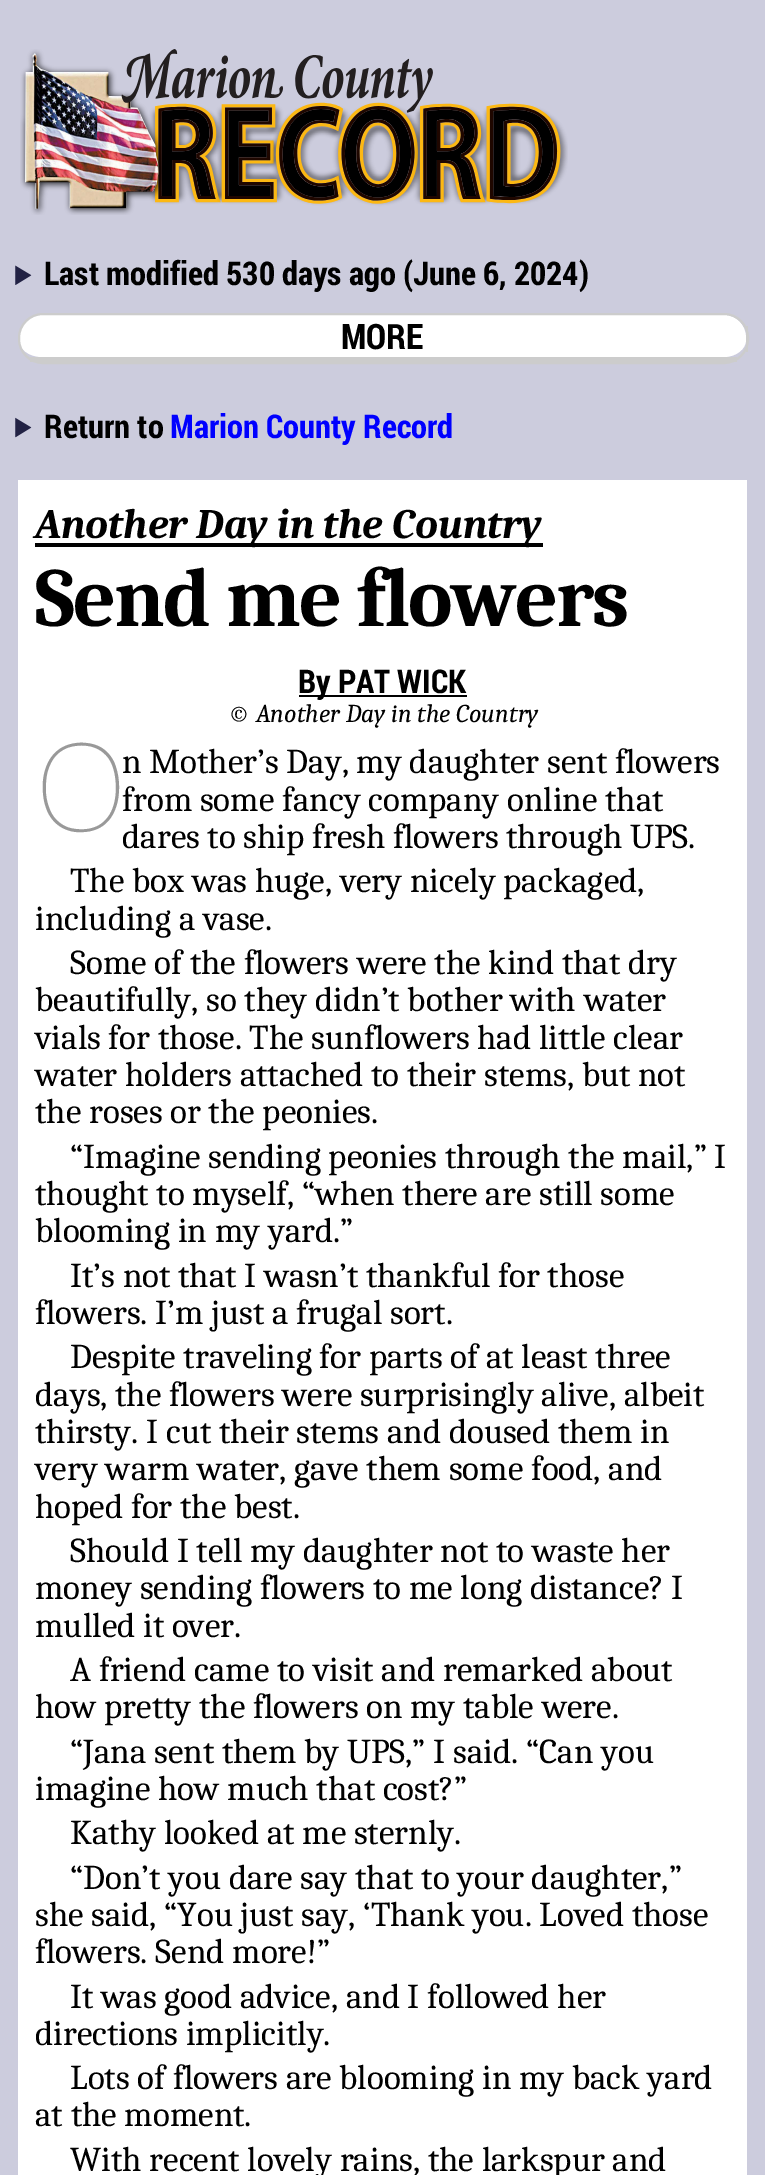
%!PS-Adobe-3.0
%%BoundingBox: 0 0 765 2175
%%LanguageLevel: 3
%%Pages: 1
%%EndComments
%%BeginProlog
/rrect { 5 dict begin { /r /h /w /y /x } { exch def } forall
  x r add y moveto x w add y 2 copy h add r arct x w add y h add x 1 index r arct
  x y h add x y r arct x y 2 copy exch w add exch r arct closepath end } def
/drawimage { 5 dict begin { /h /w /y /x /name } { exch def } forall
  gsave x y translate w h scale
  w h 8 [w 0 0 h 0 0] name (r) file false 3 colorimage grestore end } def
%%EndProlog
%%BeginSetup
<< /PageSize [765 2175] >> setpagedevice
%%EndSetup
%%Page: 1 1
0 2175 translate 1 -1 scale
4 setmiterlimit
0.8 0.8 0.867 setrgbcolor
0 0 765 2175 rectfill
(images/1.raw) 20 49 548 166 drawimage
(images/2.raw) 15 265 17 20 drawimage
1 setgray
newpath 42 315 moveto 724 315 lineto 736 315 746 325 746 338 curveto 746 340 lineto 746 349 736 357 724 357 curveto 42 357 lineto 29 357 19 349 19 340 curveto 19 338 lineto 19 325 29 315 42 315 curveto closepath fill
0.8 setgray
2 setlinewidth
19 314 729 49 24 rrect stroke
746 326 2 26 rectfill
30 357 707 5 rectfill
(images/3.raw) 15 417 17 21 drawimage
1 setgray
18 480 729 1695 rectfill
0 setgray
35 543 508 4 rectfill
299 695 168 2 rectfill
/RobotoCondensed-Bold [32.7 0 0 -32.7 0 0] selectfont
44 285 moveto (Last modified 530 days ago \(June 6, 2024\)) show
/RobotoCondensed-Bold [35 0 0 -35 0 0] selectfont
341 349 moveto (MORE) show
/RobotoCondensed-Bold [32.7 0 0 -32.7 0 0] selectfont
44 438 moveto (Return to) show
0 0 1 setrgbcolor
170 438 moveto (Marion County Record) show
/Caladea-BoldItalic [42 0 0 -42 0 0] selectfont
0 setgray
35 538 moveto (Another Day in the Country) show
/Caladea-Bold [84 0 0 -84 0 0] selectfont
35 626 moveto -1.75 0 (Send me flowers) ashow
/RobotoCondensed-Bold [32.7 0 0 -32.7 0 0] selectfont
298 693 moveto (By PAT WICK) show
/Caladea-Italic [25.75 0 0 -25.75 0 0] selectfont
228 722 moveto (© Another Day in the Country) show
/NotoSans-Thin [122 0 0 -122 0 0] selectfont
0.6 setgray
35 831 moveto (O) show
/Caladea-Regular [35 0 0 -35 0 0] selectfont
0 setgray
122 773 moveto (n Mother’s Day, my daughter sent flowers) show
122 811 moveto (from some fancy company online that) show
122 848 moveto (dares to ship fresh flowers through UPS.) show
70 892 moveto (The box was huge, very nicely packaged,) show
35 930 moveto (including a vase.) show
70 974 moveto (Some of the flowers were the kind that dry) show
35 1011 moveto (beautifully, so they didn’t bother with water) show
35 1049 moveto (vials for those. The sunflowers had little clear) show
35 1086 moveto (water holders attached to their stems, but not) show
35 1123 moveto (the roses or the peonies.) show
70 1168 moveto (“Imagine sending peonies through the mail,” I) show
35 1205 moveto (thought to myself, “when there are still some) show
35 1242 moveto (blooming in my yard.”) show
70 1287 moveto (It’s not that I wasn’t thankful for those) show
35 1324 moveto (flowers. I’m just a frugal sort.) show
70 1368 moveto (Despite traveling for parts of at least three) show
35 1406 moveto (days, the flowers were surprisingly alive, albeit) show
35 1443 moveto (thirsty. I cut their stems and doused them in) show
35 1480 moveto (very warm water, gave them some food, and) show
35 1518 moveto (hoped for the best.) show
70 1562 moveto (Should I tell my daughter not to waste her) show
35 1599 moveto (money sending flowers to me long distance? I) show
35 1637 moveto (mulled it over.) show
70 1681 moveto (A friend came to visit and remarked about) show
35 1718 moveto (how pretty the flowers on my table were.) show
70 1763 moveto (“Jana sent them by UPS,” I said. “Can you) show
35 1800 moveto (imagine how much that cost?”) show
70 1844 moveto (Kathy looked at me sternly.) show
70 1889 moveto (“Don’t you dare say that to your daughter,”) show
35 1926 moveto (she said, “You just say, ‘Thank you. Loved those) show
35 1963 moveto (flowers. Send more!”) show
70 2008 moveto (It was good advice, and I followed her) show
35 2045 moveto (directions implicitly.) show
70 2089 moveto (Lots of flowers are blooming in my back yard) show
35 2126 moveto (at the moment.) show
70 2171 moveto (With recent lovely rains, the larkspur and) show
showpage
%%EOF
